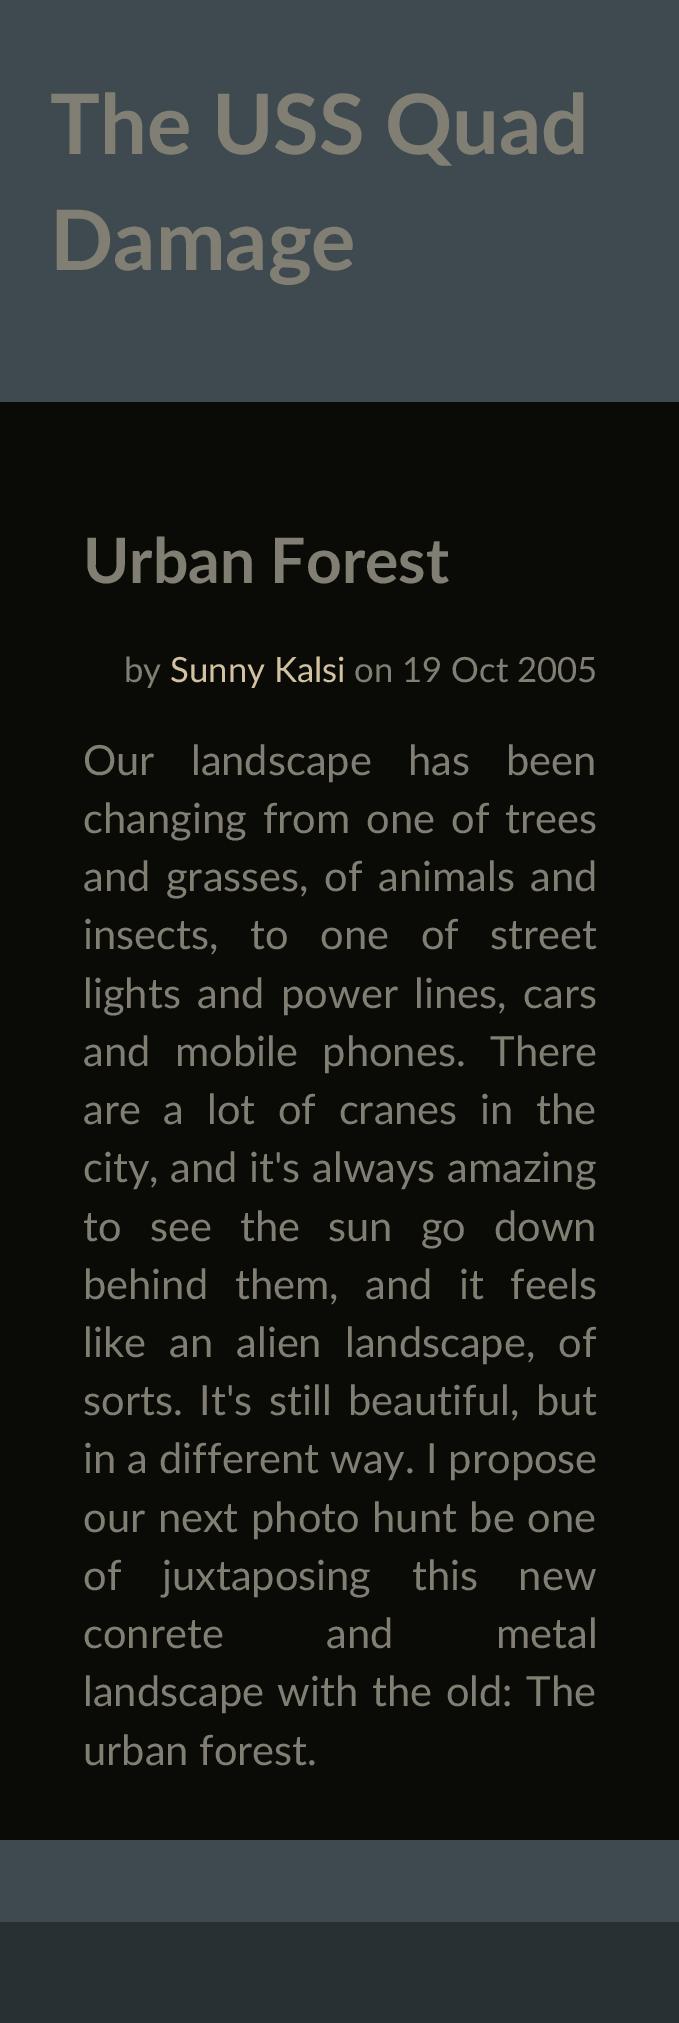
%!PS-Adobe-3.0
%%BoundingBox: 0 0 679 2023
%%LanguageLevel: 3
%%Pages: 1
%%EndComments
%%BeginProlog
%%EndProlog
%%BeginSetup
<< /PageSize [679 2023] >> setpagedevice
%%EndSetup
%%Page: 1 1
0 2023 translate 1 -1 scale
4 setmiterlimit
0.247 0.29 0.314 setrgbcolor
0 0 679 2023 rectfill
0.039 0.043 0.024 setrgbcolor
0 402 679 1438 rectfill
0.161 0.188 0.2 setrgbcolor
0 1922 679 101 rectfill
/Lato-Bold [83.25 0 0 -83.25 0 0] selectfont
0.506 0.498 0.451 setrgbcolor
50 154 moveto (The USS Quad) show
50 270 moveto (Damage) show
/Lato-Bold [62.5 0 0 -62.5 0 0] selectfont
83 583 moveto (Urban Forest) show
/Lato-Regular [34.75 0 0 -34.75 0 0] selectfont
124 682 moveto (by) show
0.824 0.761 0.631 setrgbcolor
170 682 moveto (Sunny Kalsi) show
0.506 0.498 0.451 setrgbcolor
354 682 moveto (on 19 Oct 2005) show
/Lato-Regular [41.6 0 0 -41.6 0 0] selectfont
83 775 moveto 25.5 0 32 (Our landscape has been) widthshow
83 833 moveto 5.5 0 32 (changing from one of trees) widthshow
83 891 moveto 5 0 32 (and grasses, of animals and) widthshow
83 949 moveto 21 0 32 (insects, to one of street) widthshow
83 1008 moveto 6 0 32 (lights and power lines, cars) widthshow
83 1066 moveto 14 0 32 (and mobile phones. There) widthshow
83 1124 moveto 12 0 32 (are a lot of cranes in the) widthshow
83 1182 moveto 1 0 32 (city, and it's always amazing) widthshow
83 1241 moveto 17.5 0 32 (to see the sun go down) widthshow
83 1299 moveto 16 0 32 (behind them, and it feels) widthshow
83 1357 moveto 12.5 0 32 (like an alien landscape, of) widthshow
83 1415 moveto 6 0 32 (sorts. It's still beautiful, but) widthshow
83 1473 moveto 0.5 0 32 (in a different way. I propose) widthshow
83 1532 moveto 2 0 32 (our next photo hunt be one) widthshow
83 1590 moveto 30 0 32 (of juxtaposing this new) widthshow
83 1648 moveto 92 0 32 (conrete and metal) widthshow
83 1706 moveto 3 0 32 (landscape with the old: The) widthshow
83 1765 moveto (urban forest.) show
showpage
%%EOF
